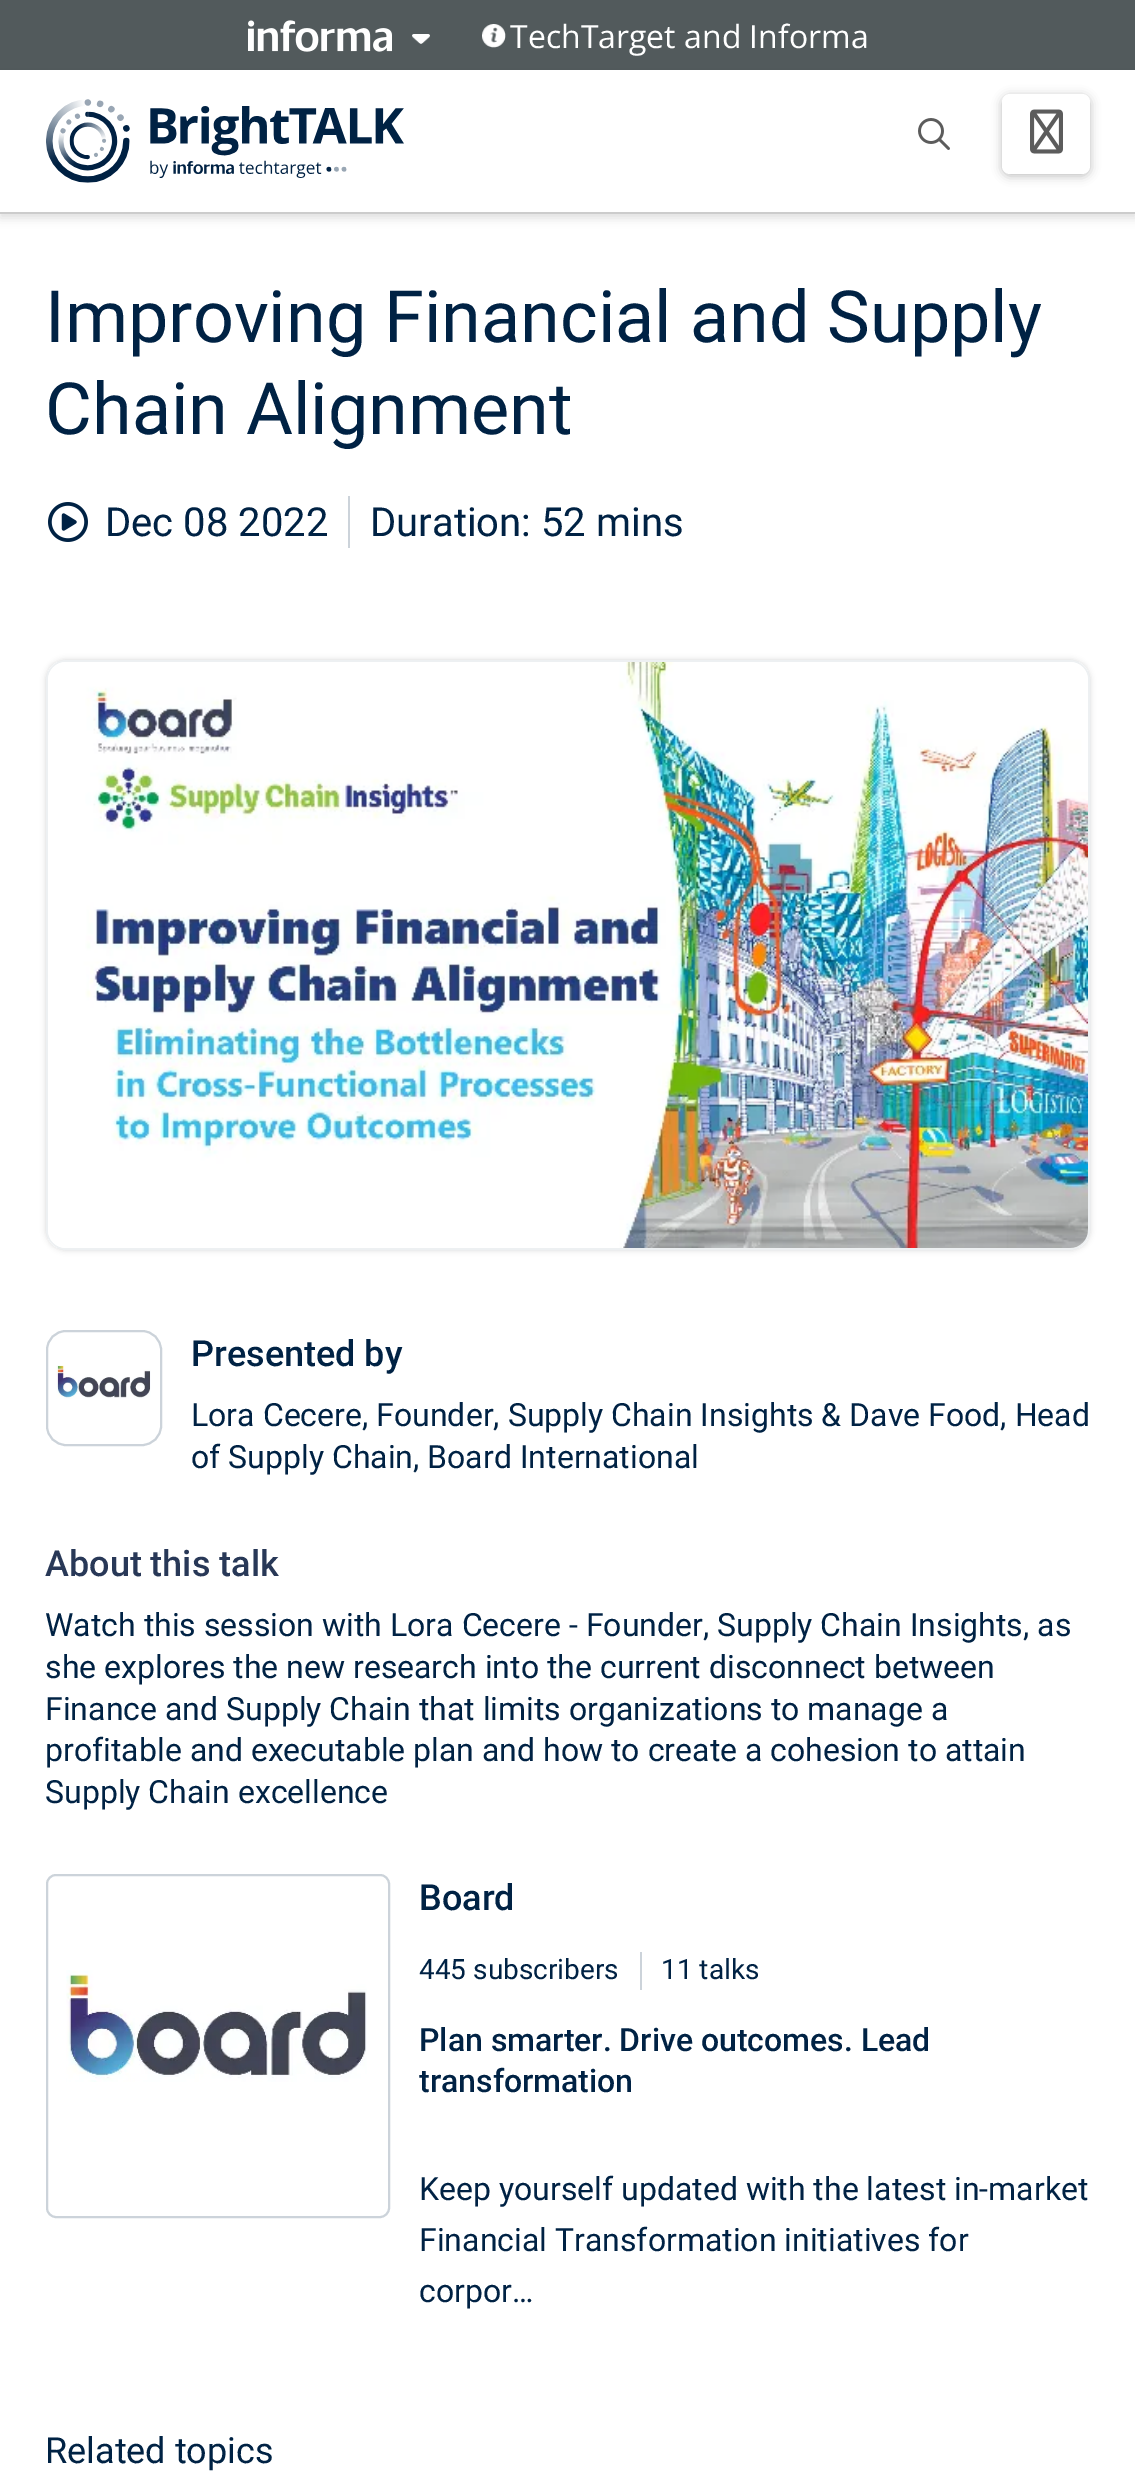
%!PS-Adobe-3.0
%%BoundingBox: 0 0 1135 2485
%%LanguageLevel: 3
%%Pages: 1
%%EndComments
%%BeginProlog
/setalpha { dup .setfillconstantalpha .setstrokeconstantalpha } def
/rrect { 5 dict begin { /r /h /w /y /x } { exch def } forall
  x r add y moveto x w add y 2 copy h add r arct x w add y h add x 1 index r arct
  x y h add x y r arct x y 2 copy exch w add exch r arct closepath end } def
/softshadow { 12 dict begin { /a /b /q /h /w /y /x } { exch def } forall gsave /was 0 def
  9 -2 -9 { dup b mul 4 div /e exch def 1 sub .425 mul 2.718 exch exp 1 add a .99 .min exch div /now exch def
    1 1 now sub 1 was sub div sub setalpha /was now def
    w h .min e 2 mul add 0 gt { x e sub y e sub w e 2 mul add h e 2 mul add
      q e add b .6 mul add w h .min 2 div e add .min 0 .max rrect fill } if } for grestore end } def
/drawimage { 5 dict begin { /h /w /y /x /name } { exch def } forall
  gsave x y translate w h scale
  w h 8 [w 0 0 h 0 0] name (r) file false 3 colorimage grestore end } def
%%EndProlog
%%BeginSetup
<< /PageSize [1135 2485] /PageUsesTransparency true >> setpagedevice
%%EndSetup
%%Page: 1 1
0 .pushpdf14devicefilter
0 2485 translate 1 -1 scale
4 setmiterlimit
1 setgray
0 0 1135 2485 rectfill
0.322 0.353 0.361 setrgbcolor
0 0 1135 70 rectfill
(images/1.raw) 248 20 144 32 drawimage
(images/2.raw) 412 34 18 10 drawimage
(images/3.raw) 482 24 24 24 drawimage
gsave
newpath 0 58 moveto 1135 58 lineto 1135 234 lineto 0 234 lineto closepath 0 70 moveto 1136 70 lineto 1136 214 lineto 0 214 lineto closepath eoclip newpath
0 setgray
0 74 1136 144 0 5 0.13 softshadow
grestore
0.8 setgray
0 212 1135 2 rectfill
(images/4.raw) 46 99 358 84 drawimage
(images/5.raw) 918 118 32 32 drawimage
0 setgray
1002 96 88 80 8 5 0.25 softshadow
1 setgray
1002 94 88 80 8 rrect fill
(images/6.raw) 1030 109 33 45 drawimage
0.8 0.827 0.855 setrgbcolor
348 496 2 52 rectfill
(images/7.raw) 48 502 40 40 drawimage
0 setgray
46 660 1044 590 20 3 0.16 softshadow
0.929 0.941 0.949 setrgbcolor
2 setlinewidth
47 661 1042 588 19 rrect stroke
(images/8.raw) 48 662 1040 586 drawimage
0.8 0.827 0.855 setrgbcolor
47 1331 114 114 19 rrect stroke
(images/9.raw) 56 1365 95 34 drawimage
47 1875 342 342 9 rrect stroke
(images/10.raw) 66 1970 301 112 drawimage
640 1952 2 38 rectfill
/OpenSans-Regular [32 0 0 -32 0 0] selectfont
1 setgray
510 48 moveto (TechTarget and Informa) show
/Roboto-Regular [72 0 0 -72 0 0] selectfont
0 0.133 0.267 setrgbcolor
45 342 moveto (Improving Financial and Supply) show
45 434 moveto (Chain Alignment) show
/Roboto-Regular [40 0 0 -40 0 0] selectfont
105 536 moveto (Dec 08 2022) show
370 536 moveto (Duration: 52 mins) show
/Roboto-Medium [36 0 0 -36 0 0] selectfont
191 1366 moveto (Presented by) show
/Roboto-Regular [32 0 0 -32 0 0] selectfont
191 1426 moveto (Lora Cecere, Founder, Supply Chain Insights & Dave Food, Head) show
191 1468 moveto (of Supply Chain, Board International) show
/Roboto-Medium [36 0 0 -36 0 0] selectfont
0.157 0.22 0.341 setrgbcolor
45 1576 moveto (About this talk) show
/Roboto-Regular [32 0 0 -32 0 0] selectfont
0 0.133 0.267 setrgbcolor
45 1636 moveto (Watch this session with Lora Cecere - Founder, Supply Chain Insights, as) show
45 1678 moveto (she explores the new research into the current disconnect between) show
45 1720 moveto (Finance and Supply Chain that limits organizations to manage a) show
45 1761 moveto (profitable and executable plan and how to create a cohesion to attain) show
45 1803 moveto (Supply Chain excellence) show
/Roboto-Medium [36 0 0 -36 0 0] selectfont
419 1910 moveto (Board) show
/Roboto-Regular [28 0 0 -28 0 0] selectfont
419 1979 moveto (445 subscribers) show
661 1979 moveto (11 talks) show
/Roboto-Medium [32 0 0 -32 0 0] selectfont
419 2051 moveto (Plan smarter. Drive outcomes. Lead) show
419 2092 moveto (transformation) show
/Roboto-Regular [32 0 0 -32 0 0] selectfont
419 2200 moveto (Keep yourself updated with the latest in-market) show
419 2251 moveto (Financial Transformation initiatives for) show
419 2302 moveto (corpor…) show
/Roboto-Regular [36 0 0 -36 0 0] selectfont
45 2463 moveto (Related topics) show
.poppdf14devicefilter showpage
%%EOF
